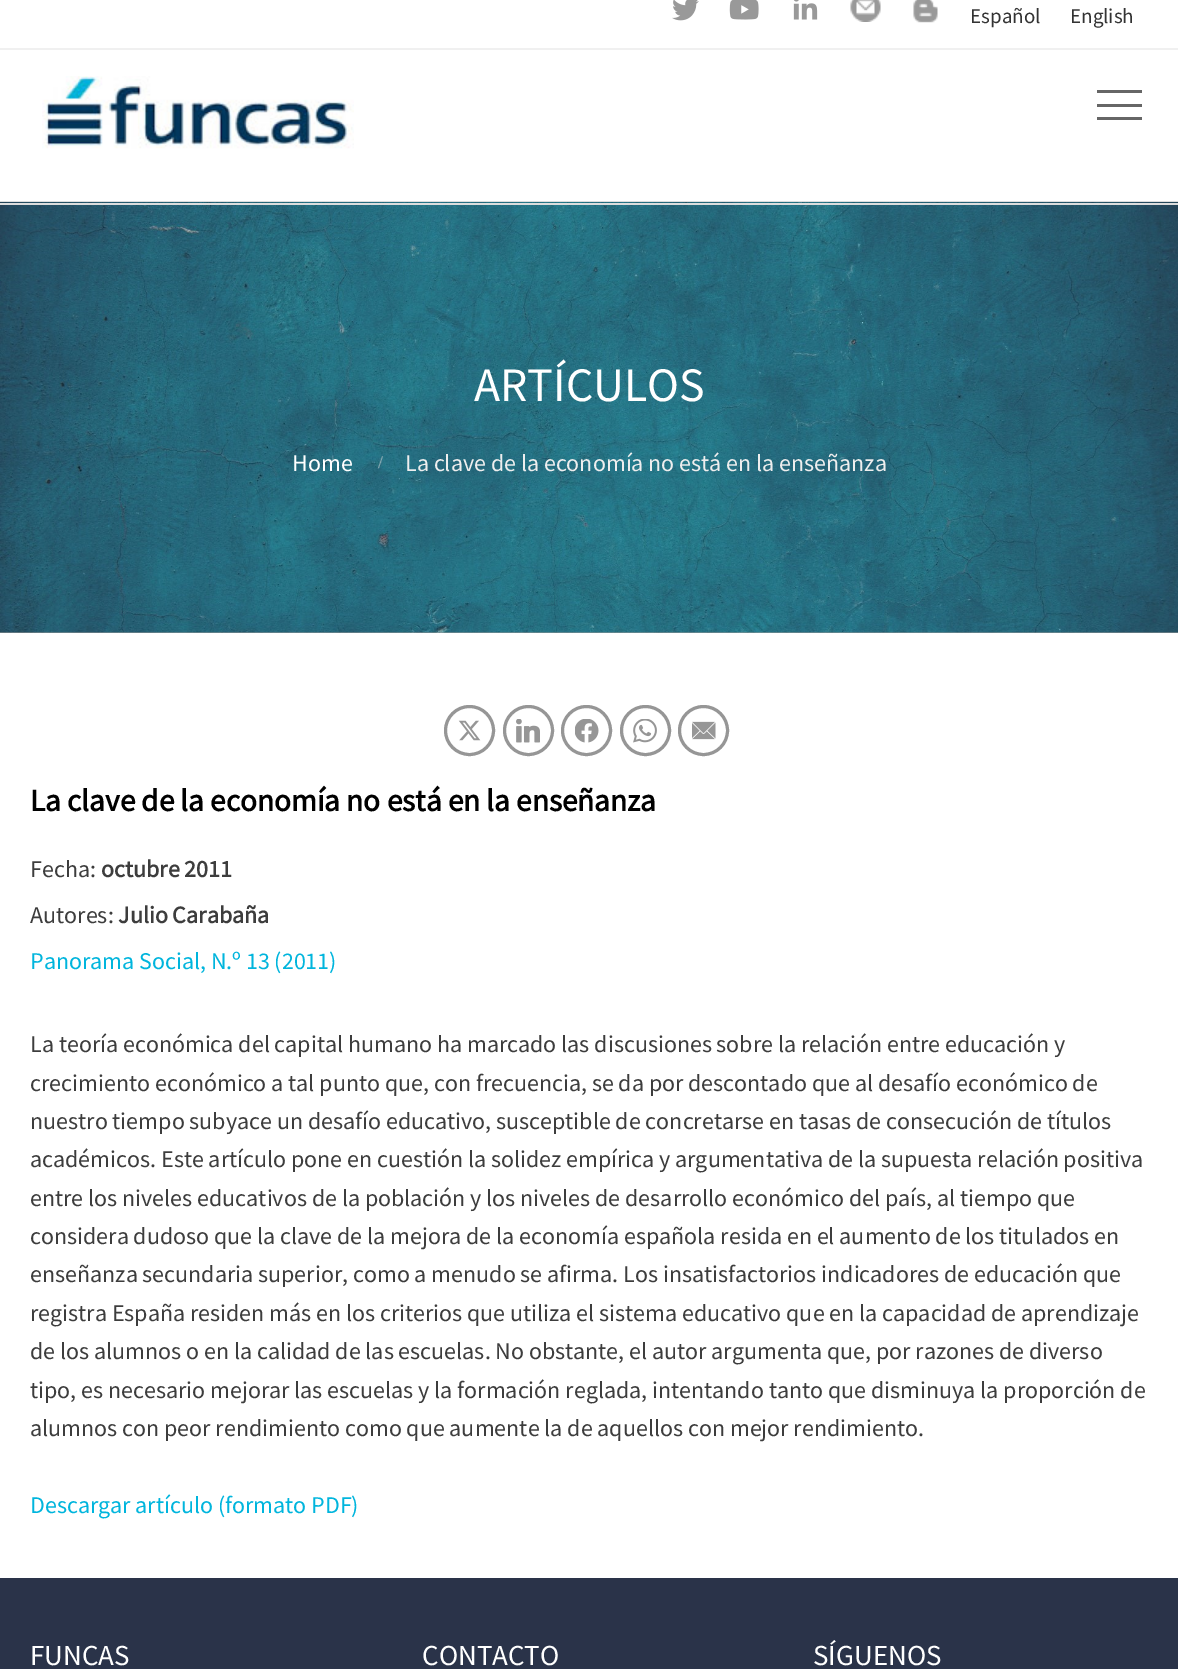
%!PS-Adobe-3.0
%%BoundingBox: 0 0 1178 1669
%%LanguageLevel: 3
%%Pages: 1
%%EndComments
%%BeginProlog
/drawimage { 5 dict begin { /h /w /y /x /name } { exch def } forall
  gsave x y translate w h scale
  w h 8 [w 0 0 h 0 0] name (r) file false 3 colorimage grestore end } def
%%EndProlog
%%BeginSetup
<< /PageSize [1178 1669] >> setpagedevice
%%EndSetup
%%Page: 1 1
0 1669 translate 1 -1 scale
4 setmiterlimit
1 setgray
0 0 1178 1669 rectfill
0.941 setgray
0 48 1178 2 rectfill
(images/1.raw) 672 0 27 21 drawimage
(images/2.raw) 729 0 30 20 drawimage
(images/3.raw) 793 0 25 20 drawimage
(images/4.raw) 850 0 31 22 drawimage
(images/5.raw) 913 0 25 23 drawimage
0.867 setgray
0 201 1178 1 rectfill
(images/6.raw) 42 76 312 73 drawimage
0.4 setgray
1097 90 45 3 rectfill
1097 117 45 3 rectfill
1097 104 45 3 rectfill
0.604 setgray
0 632 1178 1 rectfill
(images/7.raw) 0 202 1178 431 drawimage
0.867 setgray
0 203 1178 2 rectfill
0.588 setgray
3 setlinewidth
newpath 469.5 730.5 24 0 360 arc closepath stroke
(images/8.raw) 458 720 23 21 drawimage
newpath 528.5 730.5 24 0 360 arc closepath stroke
(images/9.raw) 516 719 24 24 drawimage
newpath 586.5 730.5 24 0 360 arc closepath stroke
(images/10.raw) 575 719 24 24 drawimage
newpath 645.5 730.5 24 0 360 arc closepath stroke
(images/11.raw) 633 719 24 24 drawimage
newpath 703.5 730.5 24 0 360 arc closepath stroke
(images/12.raw) 692 721 24 19 drawimage
0.165 0.2 0.286 setrgbcolor
0 1578 1178 91 rectfill
/SourceSansPro-Regular [21 0 0 -21 0 0] selectfont
0.2 setgray
970 23 moveto (Español) show
1070 23 moveto (English) show
/SourceSansPro-Regular [48 0 0 -48 0 0] selectfont
1 setgray
474 401 moveto (ARTÍCULOS) show
/SourceSansPro-Regular [24 0 0 -24 0 0] selectfont
292 471 moveto (Home) show
/LiberationSerif-Bold [18 0 0 -18 0 0] selectfont
0.514 0.651 0.686 setrgbcolor
378 468 moveto (/) show
/SourceSansPro-Regular [24 0 0 -24 0 0] selectfont
0.933 setgray
405 471 moveto (La clave de la economía no está en la enseñanza) show
/SourceSansPro-Bold [31.2 0 0 -31.2 0 0] selectfont
0 setgray
30 811 moveto (La clave de la economía no está en la enseñanza) show
/SourceSansPro-Regular [24 0 0 -24 0 0] selectfont
0.239 setgray
30 877 moveto (Fecha:) show
/SourceSansPro-Bold [24 0 0 -24 0 0] selectfont
101 877 moveto (octubre 2011) show
/SourceSansPro-Regular [24 0 0 -24 0 0] selectfont
30 923 moveto (Autores:) show
/SourceSansPro-Bold [24 0 0 -24 0 0] selectfont
118 923 moveto (Julio Carabaña) show
/SourceSansPro-Regular [24 0 0 -24 0 0] selectfont
0 0.71 0.867 setrgbcolor
30 969 moveto (Panorama Social, N.º 13 \(2011\)) show
0.239 setgray
30 1052 moveto (La teoría económica del capital humano ha marcado las discusiones sobre la relación entre educación y) show
30 1091 moveto (crecimiento económico a tal punto que, con frecuencia, se da por descontado que al desafío económico de) show
30 1129 moveto (nuestro tiempo subyace un desafío educativo, susceptible de concretarse en tasas de consecución de títulos) show
30 1167 moveto (académicos. Este artículo pone en cuestión la solidez empírica y argumentativa de la supuesta relación positiva) show
30 1206 moveto (entre los niveles educativos de la población y los niveles de desarrollo económico del país, al tiempo que) show
30 1244 moveto (considera dudoso que la clave de la mejora de la economía española resida en el aumento de los titulados en) show
30 1282 moveto (enseñanza secundaria superior, como a menudo se afirma. Los insatisfactorios indicadores de educación que) show
30 1321 moveto (registra España residen más en los criterios que utiliza el sistema educativo que en la capacidad de aprendizaje) show
30 1359 moveto (de los alumnos o en la calidad de las escuelas. No obstante, el autor argumenta que, por razones de diverso) show
30 1398 moveto (tipo, es necesario mejorar las escuelas y la formación reglada, intentando tanto que disminuya la proporción de) show
30 1436 moveto (alumnos con peor rendimiento como que aumente la de aquellos con mejor rendimiento.) show
0 0.71 0.867 setrgbcolor
30 1513 moveto (Descargar artículo \(formato PDF\)) show
/SourceSansPro-Regular [29 0 0 -29 0 0] selectfont
1 setgray
30 1665 moveto (FUNCAS) show
422 1665 moveto (CONTACTO) show
813 1665 moveto (SÍGUENOS) show
showpage
%%EOF
